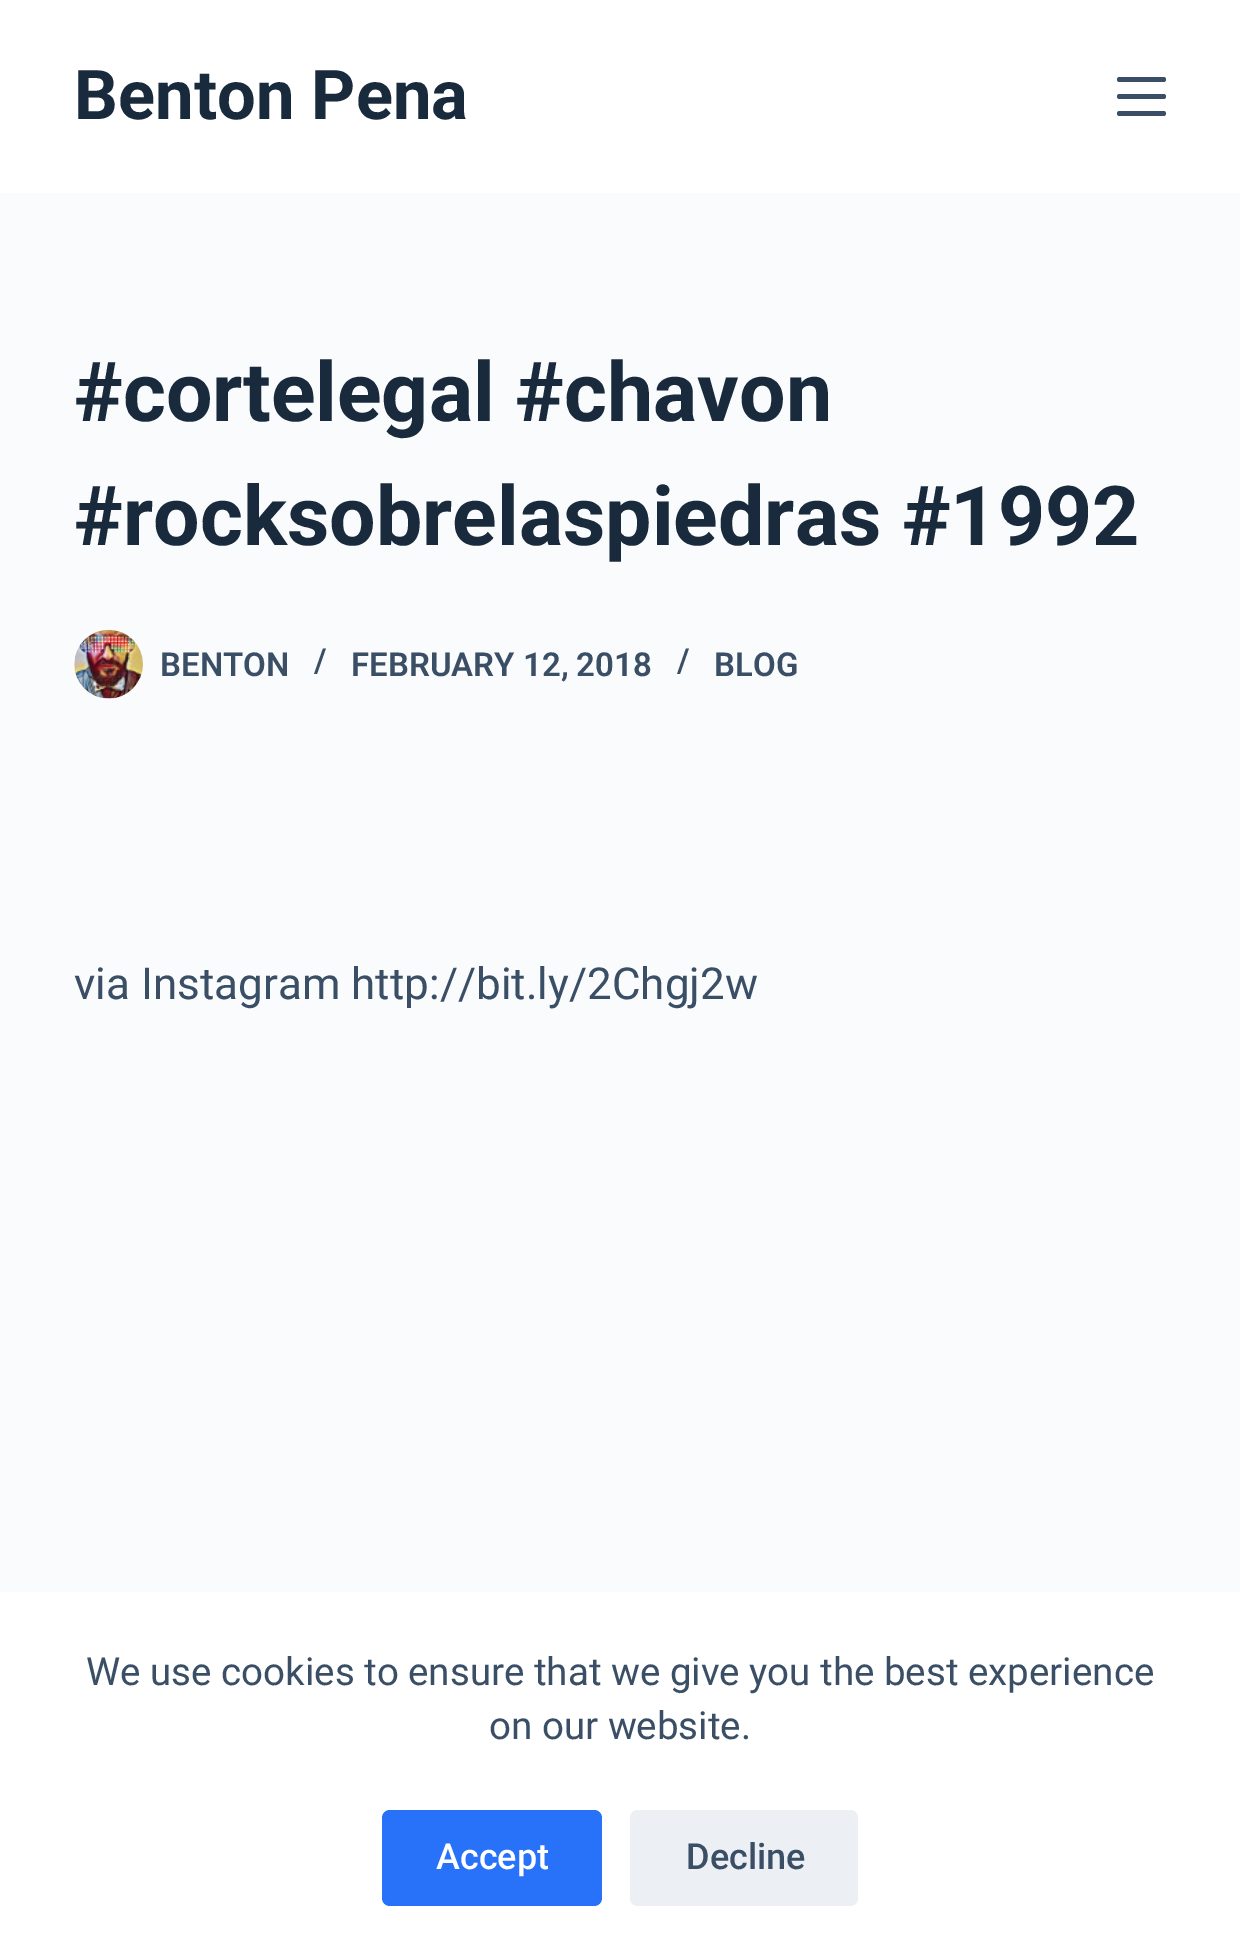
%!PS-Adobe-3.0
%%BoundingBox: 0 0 1240 1960
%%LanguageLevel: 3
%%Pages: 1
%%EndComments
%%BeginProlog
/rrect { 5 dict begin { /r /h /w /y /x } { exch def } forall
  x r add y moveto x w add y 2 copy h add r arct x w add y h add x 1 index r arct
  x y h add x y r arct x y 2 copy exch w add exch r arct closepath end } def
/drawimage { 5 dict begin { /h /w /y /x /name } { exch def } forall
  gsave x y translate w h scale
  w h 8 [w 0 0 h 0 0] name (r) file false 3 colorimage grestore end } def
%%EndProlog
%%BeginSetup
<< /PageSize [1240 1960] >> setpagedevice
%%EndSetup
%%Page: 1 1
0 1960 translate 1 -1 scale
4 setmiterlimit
0.98 0.984 0.988 setrgbcolor
0 0 1240 1960 rectfill
1 setgray
0 0 1240 193 rectfill
0.227 0.31 0.4 setrgbcolor
1117 77 49 5 2.5 rrect fill
1117 94 49 5 2.5 rrect fill
1117 111 49 5 2.5 rrect fill
(images/1.raw) 74 629 69 70 drawimage
1 setgray
0 1592 1240 368 rectfill
0.157 0.447 0.98 setrgbcolor
382 1810 220 96 8 rrect fill
0.925 0.937 0.953 setrgbcolor
630 1810 228 96 8 rrect fill
/Roboto-Bold [68.75 0 0 -68.75 0 0] selectfont
0.098 0.165 0.239 setrgbcolor
74 119 moveto (Benton Pena) show
/Roboto-Bold [82.5 0 0 -82.5 0 0] selectfont
74 421 moveto (#cortelegal #chavon) show
74 545 moveto (#rocksobrelaspiedras #1992) show
/Roboto-SemiBold [33 0 0 -33 0 0] selectfont
0.227 0.31 0.4 setrgbcolor
160 676 moveto (BENTON) show
314 672 moveto (/) show
351 676 moveto (FEBRUARY 12, 2018) show
677 672 moveto (/) show
714 676 moveto (BLOG) show
/Roboto-Regular [44 0 0 -44 0 0] selectfont
74 999 moveto (via Instagram http://bit.ly/2Chgj2w) show
/Roboto-Regular [38.5 0 0 -38.5 0 0] selectfont
86 1685 moveto (We use cookies to ensure that we give you the best experience) show
489 1739 moveto (on our website.) show
/Roboto-Medium [36 0 0 -36 0 0] selectfont
1 setgray
436 1869 moveto (Accept) show
0.227 0.31 0.4 setrgbcolor
686 1869 moveto (Decline) show
showpage
%%EOF
